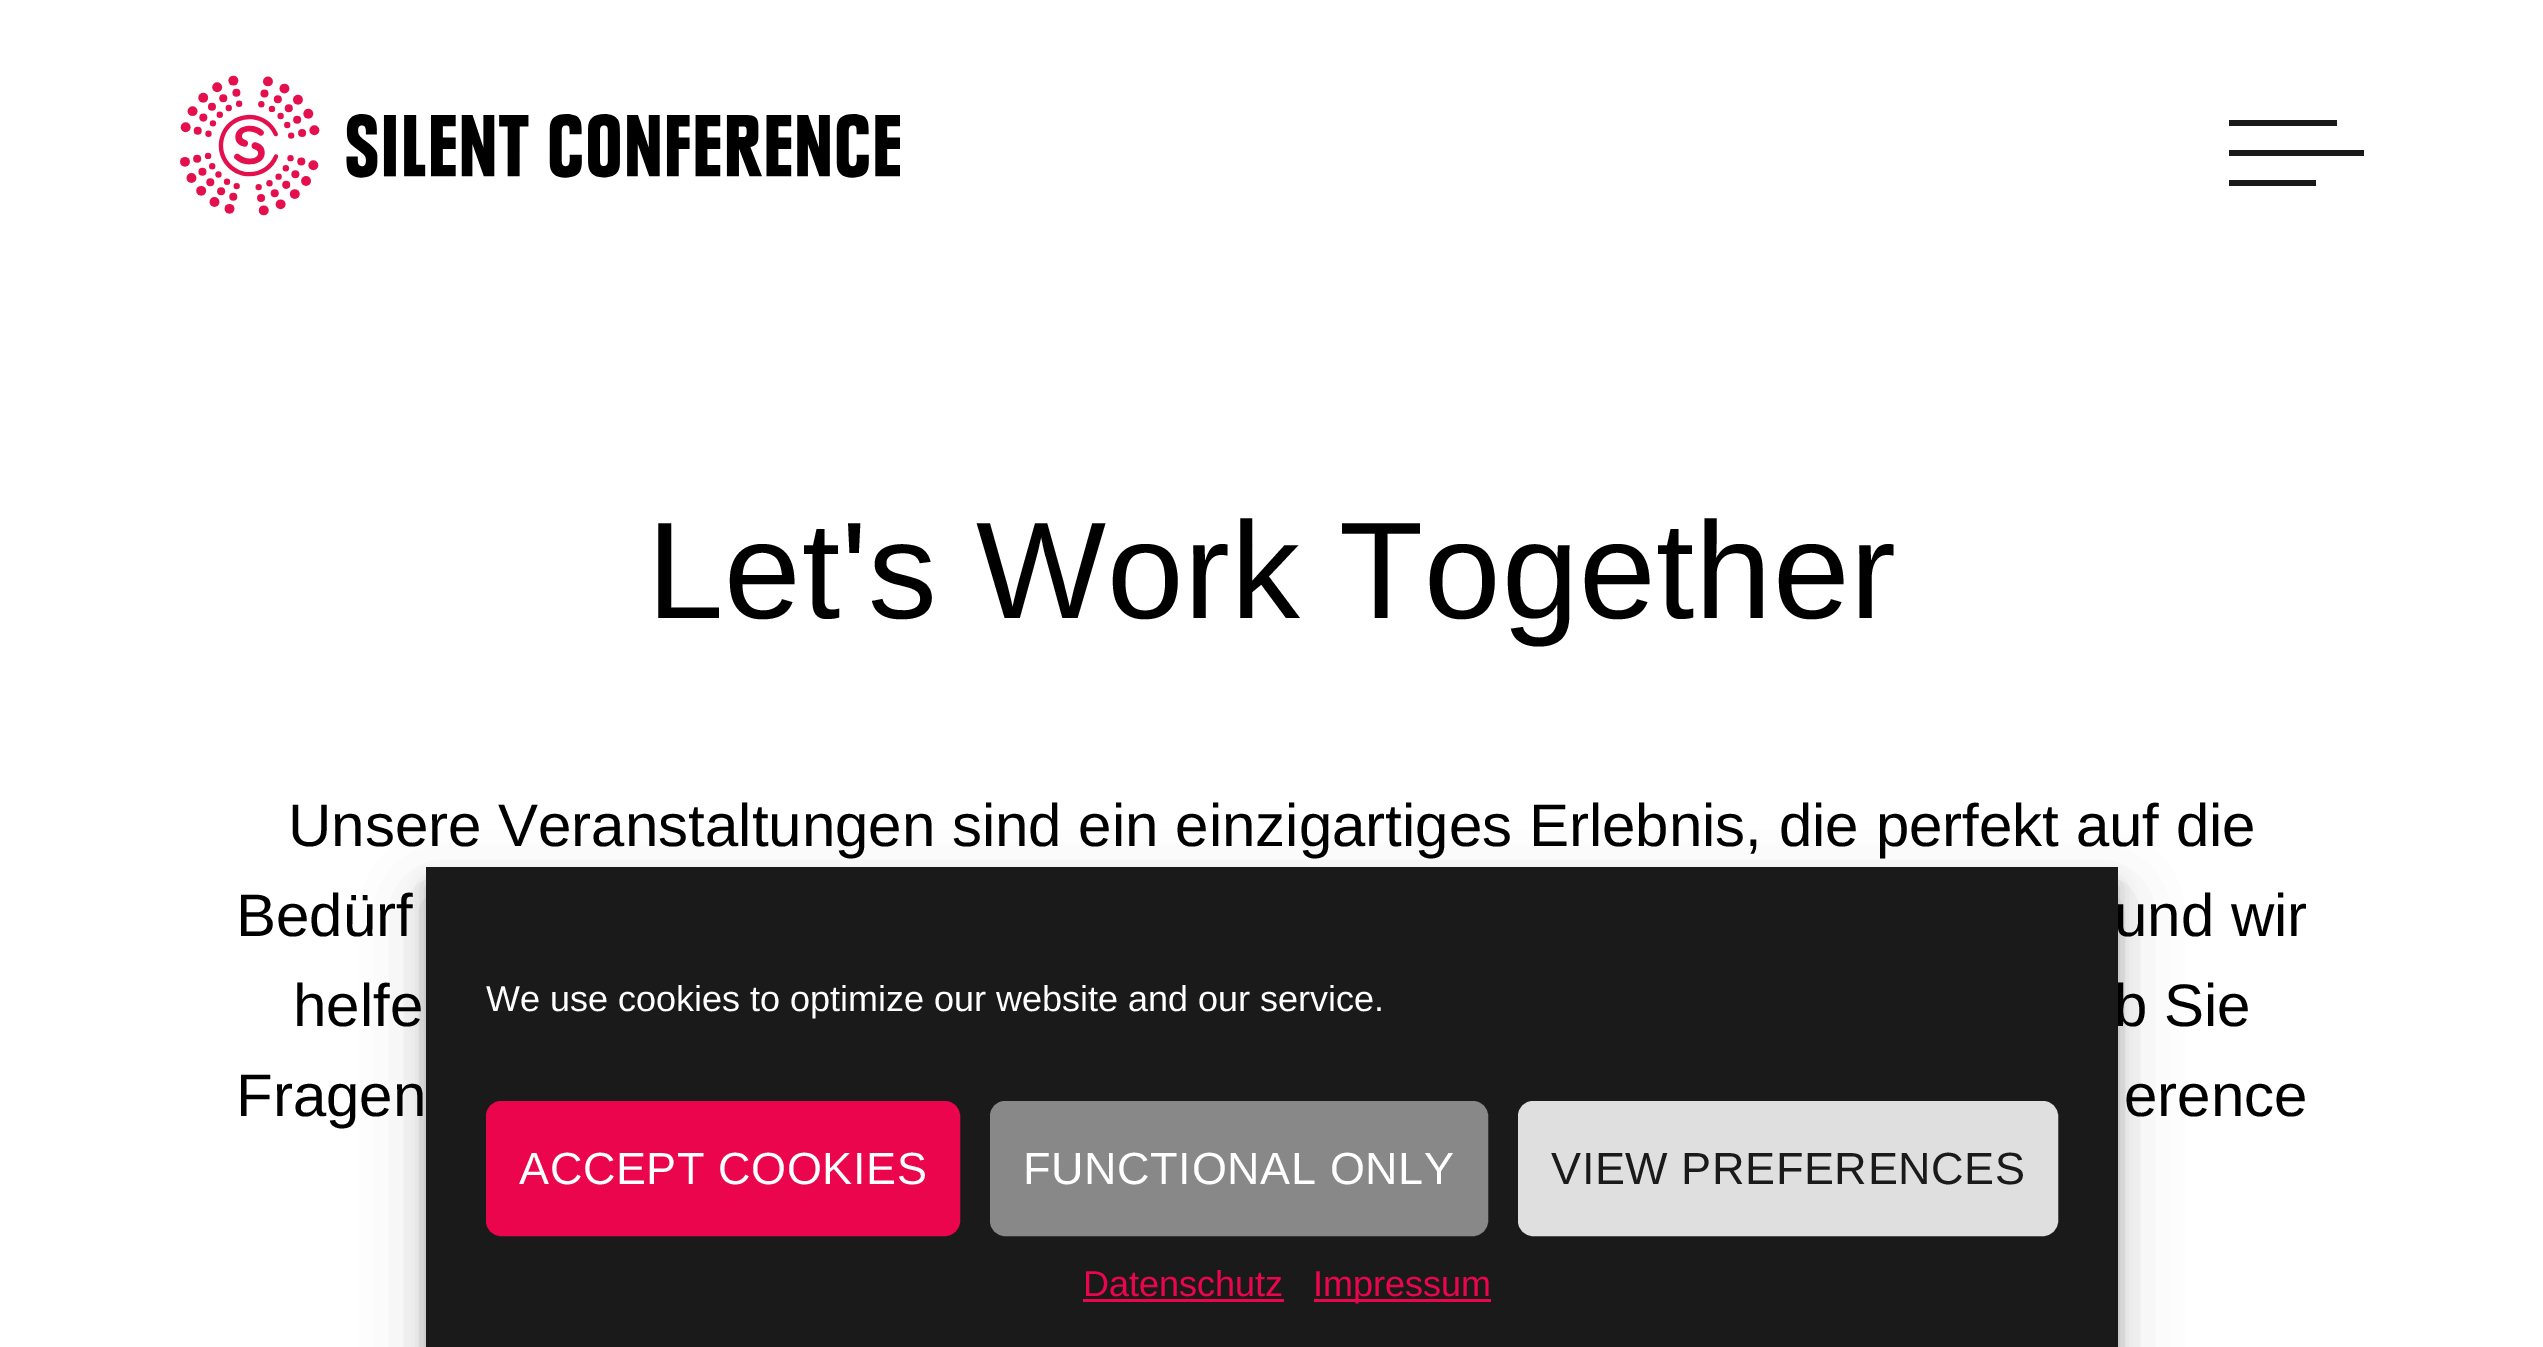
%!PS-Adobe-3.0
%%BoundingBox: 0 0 2543 1347
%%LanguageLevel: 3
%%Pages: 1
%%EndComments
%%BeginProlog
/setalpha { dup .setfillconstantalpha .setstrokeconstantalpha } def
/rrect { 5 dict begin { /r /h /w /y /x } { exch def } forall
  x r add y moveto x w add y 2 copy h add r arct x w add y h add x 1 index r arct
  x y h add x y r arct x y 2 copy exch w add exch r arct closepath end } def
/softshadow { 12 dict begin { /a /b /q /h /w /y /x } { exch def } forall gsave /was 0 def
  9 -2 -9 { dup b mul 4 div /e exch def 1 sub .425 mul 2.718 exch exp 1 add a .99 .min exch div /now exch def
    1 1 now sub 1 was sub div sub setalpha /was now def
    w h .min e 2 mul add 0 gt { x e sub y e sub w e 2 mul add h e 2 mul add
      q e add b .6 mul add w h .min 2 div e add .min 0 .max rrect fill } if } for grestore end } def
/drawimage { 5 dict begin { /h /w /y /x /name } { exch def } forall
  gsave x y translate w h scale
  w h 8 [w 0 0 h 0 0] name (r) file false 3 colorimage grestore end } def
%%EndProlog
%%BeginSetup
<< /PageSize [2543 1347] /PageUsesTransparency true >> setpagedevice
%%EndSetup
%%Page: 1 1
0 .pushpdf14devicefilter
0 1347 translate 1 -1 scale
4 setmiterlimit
1 setgray
0 0 2543 1347 rectfill
(images/1.raw) 180 75 720 141 drawimage
0.102 setgray
2229 120 108 6 rectfill
2229 150 135 6 rectfill
2229 180 87 6 rectfill
0 setgray
426 885 1692 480 0 9 0.23 softshadow
426 897 1692 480 0 30 0.19 softshadow
0.102 setgray
426 867 1692 480 rectfill
0.918 0.02 0.302 setrgbcolor
487.5 1102.5 471 132 13.5 rrect gsave fill grestore
3 setlinewidth
stroke
0.533 setgray
991.5 1102.5 495 132 13.5 rrect gsave fill grestore
stroke
0.875 setgray
1519.5 1102.5 537 132 13.5 rrect gsave fill grestore
stroke
0.918 0.02 0.302 setrgbcolor
1083 1299 201 3 rectfill
1314 1299 177 3 rectfill
/LiberationSans-Regular [138 0 0 -138 0 0] selectfont
0 setgray
647 618 moveto 0.6 0 (Let's Work Together) ashow
/LiberationSans-Regular [60 0 0 -60 0 0] selectfont
288 846 moveto (Unsere Veranstaltungen sind ein einzigartiges Erlebnis, die perfekt auf die) show
236 936 moveto (Bedürf) show
2114 936 moveto (und wir) show
293 1026 moveto (helfe) show
2114 1026 moveto (b Sie) show
236 1116 moveto (Fragen) show
2124 1116 moveto (erence) show
/LiberationSans-Regular [36 0 0 -36 0 0] selectfont
1 setgray
486 1011 moveto (We use cookies to optimize our website and our service.) show
/LiberationSans-Regular [45 0 0 -45 0 0] selectfont
519 1184 moveto 0.6 0 (ACCEPT COOKIES) ashow
1023 1184 moveto 0.6 0 (FUNCTIONAL ONLY) ashow
0.102 setgray
1551 1184 moveto 0.6 0 (VIEW PREFERENCES) ashow
/LiberationSans-Regular [36 0 0 -36 0 0] selectfont
0.918 0.02 0.302 setrgbcolor
1083 1296 moveto (Datenschutz) show
1313 1296 moveto (Impressum) show
.poppdf14devicefilter showpage
%%EOF
